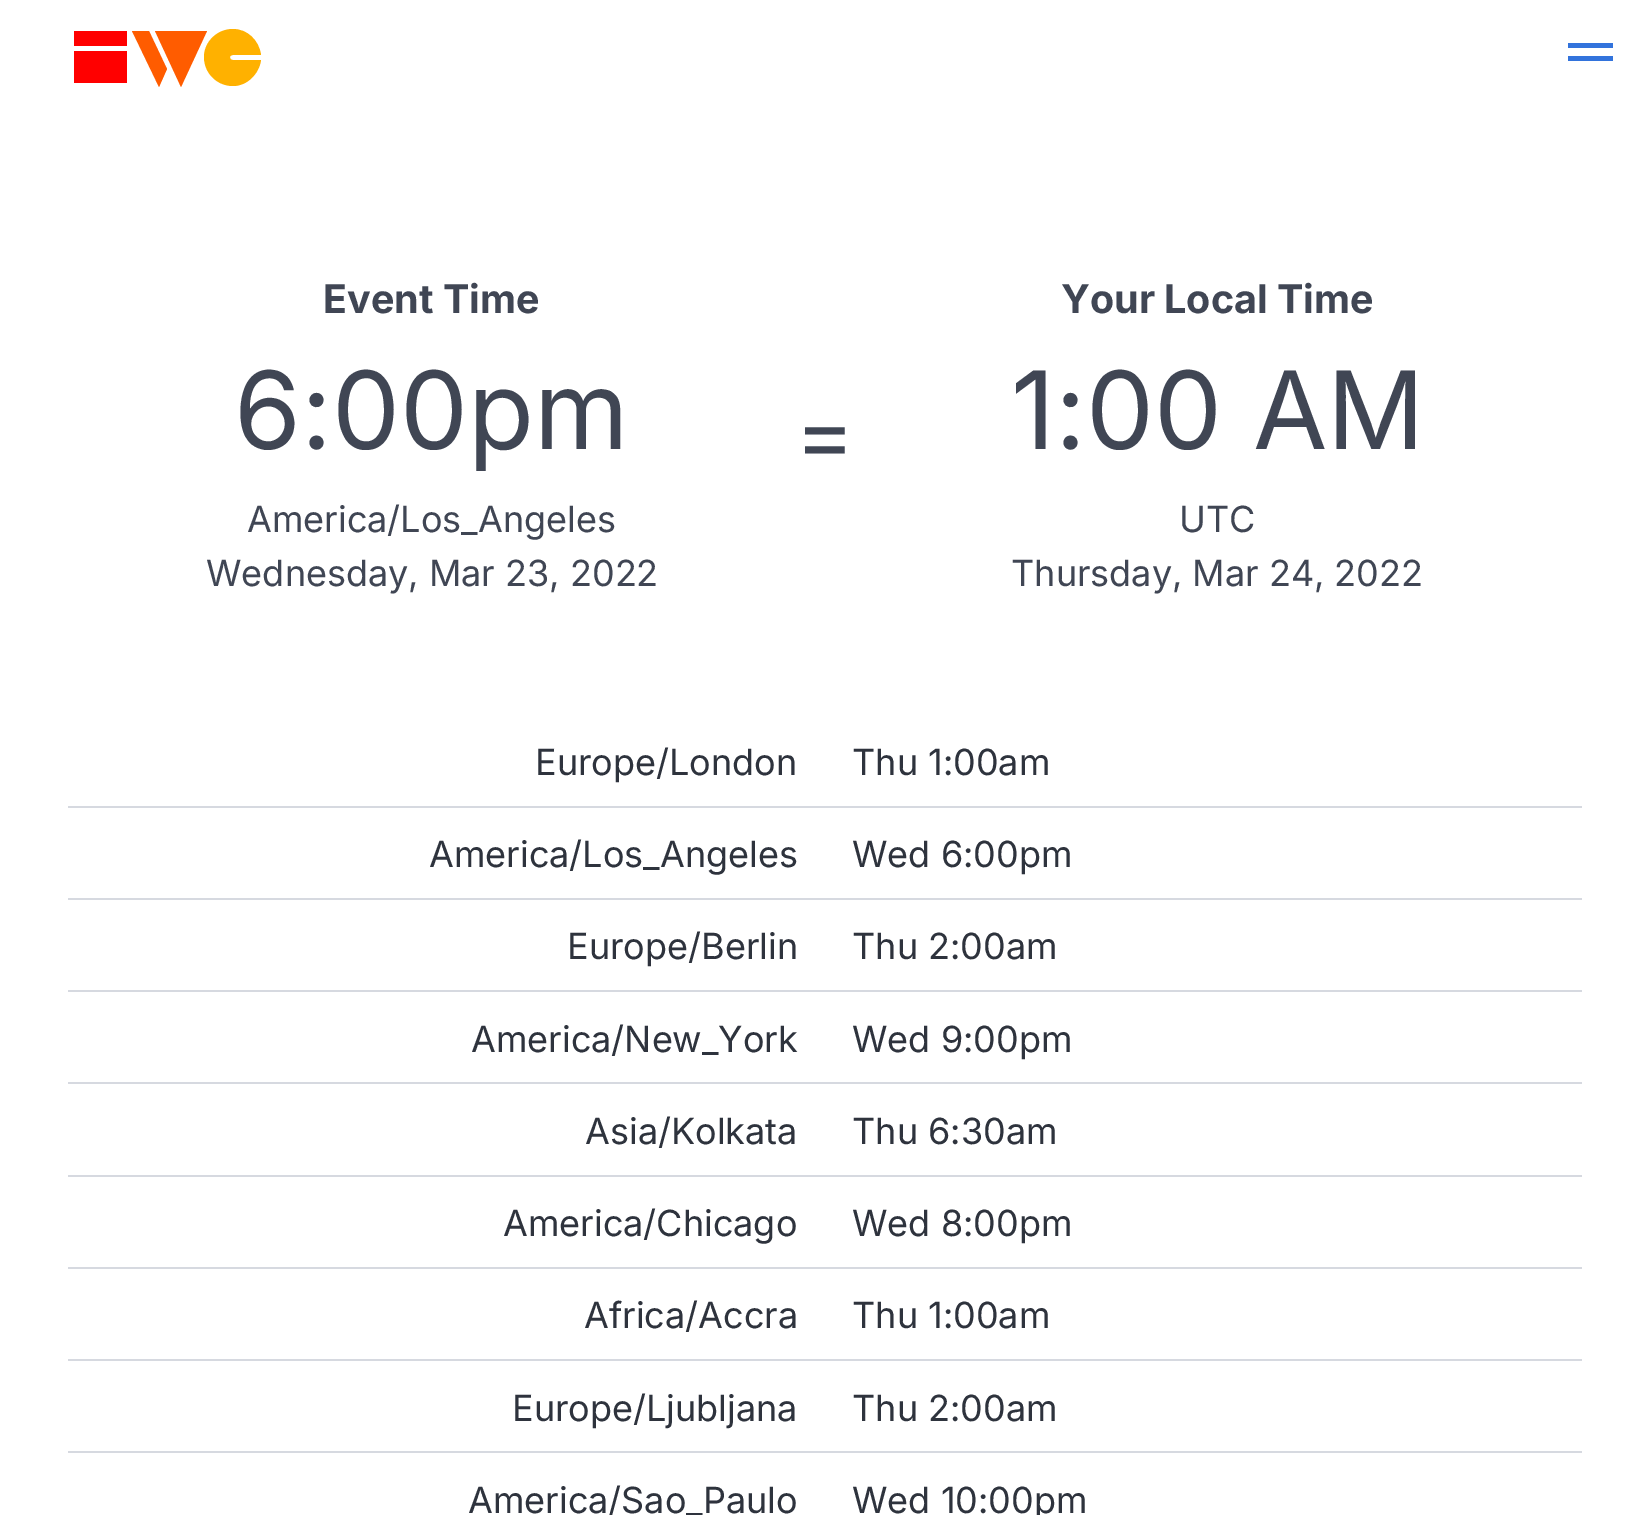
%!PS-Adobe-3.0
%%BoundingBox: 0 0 1649 1515
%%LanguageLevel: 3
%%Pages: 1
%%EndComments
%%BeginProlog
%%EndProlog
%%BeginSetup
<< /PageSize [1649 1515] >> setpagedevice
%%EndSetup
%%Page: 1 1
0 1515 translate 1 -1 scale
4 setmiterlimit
1 setgray
0 0 1649 1515 rectfill
1 0 0 setrgbcolor
74 31 53 15 rectfill
1 0.361 0 setrgbcolor
newpath 132 31 moveto 159 87 lineto 167 69 lineto 149 31 lineto closepath fill
1 0.694 0 setrgbcolor
newpath 261 60 moveto 259 74 247 86 233 86 curveto 217 86 204 73 204 57 curveto 204 42 217 29 233 29 curveto 247 29 259 40 261 55 curveto 233 55 lineto 231 55 230 56 230 57 curveto 230 59 231 60 233 60 curveto closepath fill
1 0.361 0 setrgbcolor
newpath 207 31 moveto 155 31 lineto 181 87 lineto closepath fill
1 0 0 setrgbcolor
74 51 53 32 rectfill
0.196 0.451 0.863 setrgbcolor
1568 43 45 5 rectfill
1568 56 45 5 rectfill
0.839 0.851 0.878 setrgbcolor
68 806 1514 2 rectfill
68 898 1514 2 rectfill
68 990 1514 2 rectfill
68 1082 1514 2 rectfill
68 1175 1514 2 rectfill
68 1267 1514 2 rectfill
68 1359 1514 2 rectfill
68 1451 1514 2 rectfill
/Inter-Bold [39.5 0 0 -39.5 0 0] selectfont
0.251 0.275 0.329 setrgbcolor
323 313 moveto (Event Time) show
/Inter-Regular [108 0 0 -108 0 0] selectfont
234 449 moveto (6:00pm) show
/Inter-Regular [36 0 0 -36 0 0] selectfont
247 532 moveto (America/Los_Angeles) show
206 586 moveto (Wednesday, Mar 23, 2022) show
/Inter-Regular [90 0 0 -90 0 0] selectfont
795 466 moveto (=) show
/Inter-Bold [39.5 0 0 -39.5 0 0] selectfont
1061 313 moveto (Your Local Time) show
/Inter-Regular [108 0 0 -108 0 0] selectfont
1011 449 moveto (1:00 AM) show
/Inter-Regular [36 0 0 -36 0 0] selectfont
1179 532 moveto (UTC) show
1011 586 moveto (Thursday, Mar 24, 2022) show
0.18 0.2 0.239 setrgbcolor
535 775 moveto (Europe/London) show
852 775 moveto (Thu 1:00am) show
429 867 moveto (America/Los_Angeles) show
852 867 moveto (Wed 6:00pm) show
567 959 moveto (Europe/Berlin) show
852 959 moveto (Thu 2:00am) show
471 1052 moveto (America/New_York) show
852 1052 moveto (Wed 9:00pm) show
585 1144 moveto (Asia/Kolkata) show
852 1144 moveto (Thu 6:30am) show
503 1236 moveto (America/Chicago) show
852 1236 moveto (Wed 8:00pm) show
584 1328 moveto (Africa/Accra) show
852 1328 moveto (Thu 1:00am) show
512 1421 moveto (Europe/Ljubljana) show
852 1421 moveto (Thu 2:00am) show
468 1513 moveto (America/Sao_Paulo) show
852 1513 moveto (Wed 10:00pm) show
showpage
%%EOF
